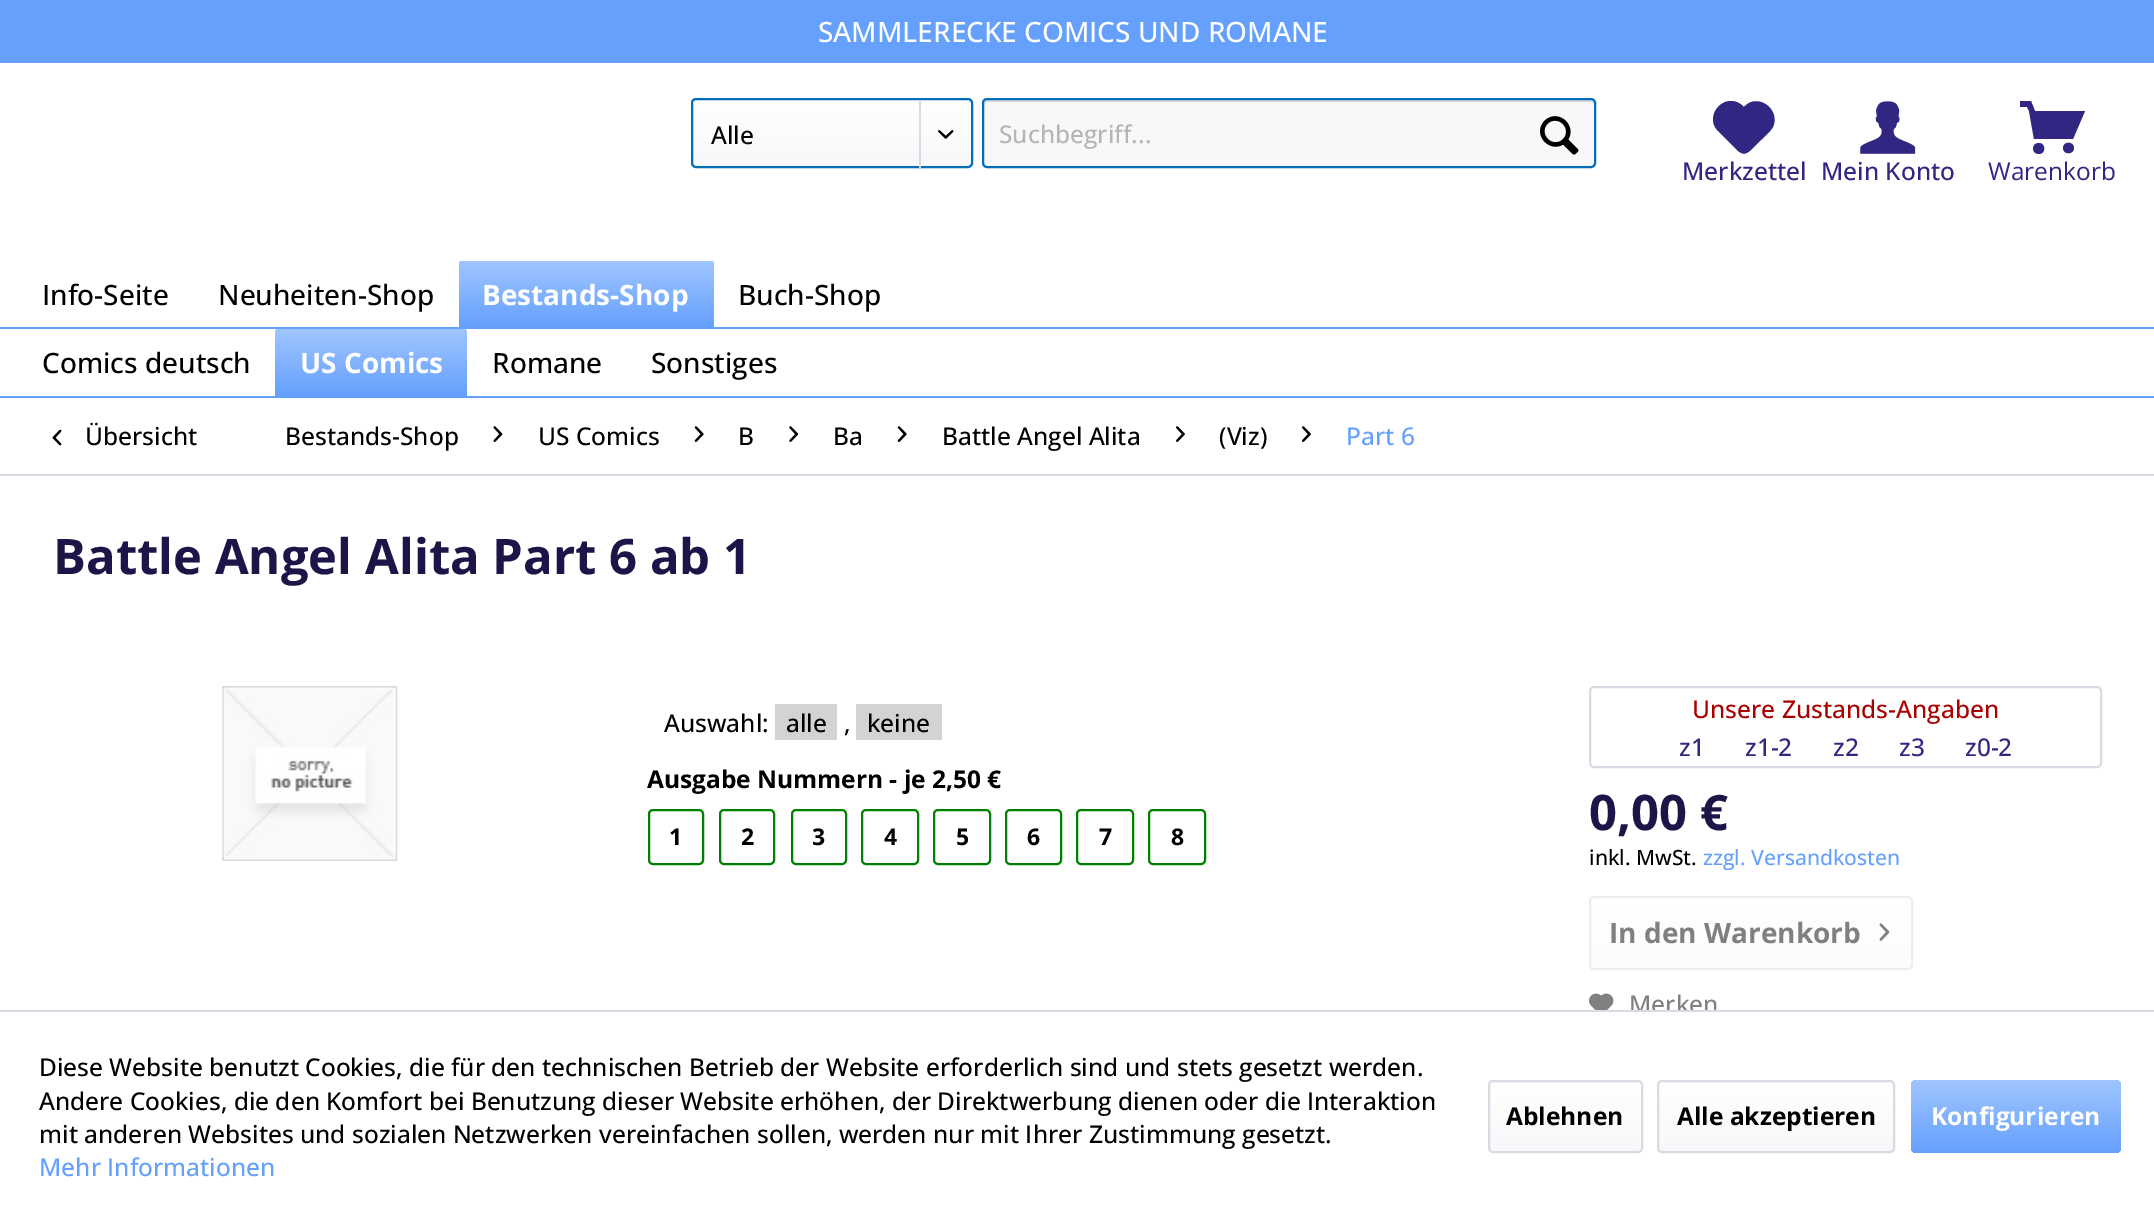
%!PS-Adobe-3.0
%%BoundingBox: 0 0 2154 1221
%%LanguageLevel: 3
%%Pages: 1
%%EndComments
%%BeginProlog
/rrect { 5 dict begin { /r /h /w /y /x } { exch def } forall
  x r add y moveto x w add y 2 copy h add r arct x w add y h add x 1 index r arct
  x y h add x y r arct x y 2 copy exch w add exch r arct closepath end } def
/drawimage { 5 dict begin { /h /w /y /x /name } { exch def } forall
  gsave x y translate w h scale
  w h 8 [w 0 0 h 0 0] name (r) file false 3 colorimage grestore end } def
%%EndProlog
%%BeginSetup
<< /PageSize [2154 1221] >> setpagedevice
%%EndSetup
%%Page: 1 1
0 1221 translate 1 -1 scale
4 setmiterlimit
0.396 0.627 0.992 setrgbcolor
0 0 2154 1221 rectfill
1 setgray
0 63 2154 333 rectfill
gsave 693 100 278 66 4 rrect clip newpath
<< /ShadingType 2 /ColorSpace /DeviceRGB /Coords [832 100 832 166] /Extend [true true] /Function << /FunctionType 2 /Domain [0 1] /C0 [1 1 1] /C1 [0.973 0.973 0.98] /N 1 >> >> shfill grestore
0.008 0.427 0.733 setrgbcolor
2 setlinewidth
692 99 280 68 4 rrect stroke
0.855 0.855 0.898 setrgbcolor
919 100 2 70 rectfill
(images/1.raw) 938 130 16 9 drawimage
0.973 0.973 0.98 setrgbcolor
982 98 614 70 5 rrect fill
0.855 0.855 0.898 setrgbcolor
newpath 987 102 moveto 1591 102 lineto 1593 102 1594 103 1594 105 curveto 1594 104 lineto 1594 102 1592 100 1590 100 curveto 988 100 lineto 986 100 984 102 984 104 curveto 984 105 lineto 984 103 985 102 987 102 curveto closepath fill
0.008 0.427 0.733 setrgbcolor
983 99 612 68 4 rrect stroke
(images/2.raw) 1540 116 39 39 drawimage
0.192 0.153 0.514 setrgbcolor
newpath 1731 101 moveto 1719 101 1710 114 1714 125 curveto 1715 127 1716 129 1718 131 curveto 1736 149 lineto 1742 155 1745 155 1751 150 curveto 1760 141 lineto 1764 137 1770 132 1773 127 curveto 1781 109 1757 92 1744 107 curveto 1740 103 1736 101 1731 101 curveto closepath fill
(images/3.raw) 1860 101 56 53 drawimage
newpath 2034 139 moveto 2073 139 lineto 2085 111 lineto 2035 111 lineto 2031 101 lineto 2020 101 lineto 2020 107 lineto 2027 107 lineto 2029 111 lineto closepath 2039 143 moveto 2031 143 2031 154 2039 154 curveto 2046 154 2046 143 2039 143 curveto closepath 2074 148 moveto 2074 155 2063 155 2063 148 curveto 2063 141 2074 141 2074 148 curveto closepath fill
gsave newpath 464 261 moveto 709 261 lineto 712 261 714 263 714 266 curveto 714 327 lineto 459 327 lineto 459 266 lineto 459 263 461 261 464 261 curveto closepath clip newpath
<< /ShadingType 2 /ColorSpace /DeviceRGB /Coords [586 261 586 327] /Extend [true true] /Function << /FunctionType 2 /Domain [0 1] /C0 [0.627 0.773 1] /C1 [0.396 0.627 0.992] /N 1 >> >> shfill grestore
0.396 0.627 0.992 setrgbcolor
0 327 2154 2 rectfill
gsave newpath 280 329 moveto 462 329 lineto 465 329 467 331 467 334 curveto 467 396 lineto 275 396 lineto 275 334 lineto 275 331 277 329 280 329 curveto closepath clip newpath
<< /ShadingType 2 /ColorSpace /DeviceRGB /Coords [371 329 371 396] /Extend [true true] /Function << /FunctionType 2 /Domain [0 1] /C0 [0.627 0.773 1] /C1 [0.396 0.627 0.992] /N 1 >> >> shfill grestore
1 setgray
0 398 2154 612 rectfill
0.855 0.855 0.898 setrgbcolor
0 474 2154 2 rectfill
(images/4.raw) 52 429 10 17 drawimage
(images/5.raw) 493 426 10 16 drawimage
(images/6.raw) 694 426 10 16 drawimage
(images/7.raw) 789 426 10 16 drawimage
(images/6.raw) 897 426 10 16 drawimage
(images/8.raw) 1176 426 9 16 drawimage
(images/8.raw) 1302 426 9 16 drawimage
(images/9.raw) 222 686 176 175 drawimage
0.827 setgray
775 704 62 36 rectfill
856 704 86 36 rectfill
0 0.502 0 setrgbcolor
649 810 54 54 4 rrect stroke
720 810 54 54 4 rrect stroke
792 810 54 54 4 rrect stroke
862 810 56 54 4 rrect stroke
934 810 56 54 4 rrect stroke
1006 810 55 54 4 rrect stroke
1077 810 56 54 4 rrect stroke
1149 810 56 54 4 rrect stroke
0.855 0.855 0.898 setrgbcolor
1590 687 511 80 4 rrect stroke
gsave 1591 898 320 70 4 rrect clip newpath
<< /ShadingType 2 /ColorSpace /DeviceRGB /Coords [1751 898 1751 968] /Extend [true true] /Function << /FunctionType 2 /Domain [0 1] /C0 [1 1 1] /C1 [0.988 0.988 0.992] /N 1 >> >> shfill grestore
0.929 0.929 0.949 setrgbcolor
1590 897 322 72 4 rrect stroke
(images/10.raw) 1879 923 11 18 drawimage
(images/11.raw) 1589 993 25 17 drawimage
/OpenSans-Medium [28 0 0 -28 0 0] selectfont
1 setgray
818 42 moveto (SAMMLERECKE COMICS UND ROMANE) show
/OpenSans-Medium [24.5 0 0 -24.5 0 0] selectfont
0 setgray
711 144 moveto (Alle) show
0.71 setgray
999 143 moveto (Suchbegriff...) show
0.192 0.153 0.514 setrgbcolor
1682 180 moveto (Merkzettel) show
1821 180 moveto (Mein Konto) show
/OpenSans-Regular [24.5 0 0 -24.5 0 0] selectfont
1988 180 moveto (Warenkorb) show
/OpenSans-Medium [28 0 0 -28 0 0] selectfont
0 setgray
42 305 moveto (Info-Seite) show
218 305 moveto (Neuheiten-Shop) show
/OpenSans-Bold [28 0 0 -28 0 0] selectfont
1 setgray
482 305 moveto (Bestands-Shop) show
/OpenSans-Medium [28 0 0 -28 0 0] selectfont
0 setgray
738 305 moveto (Buch-Shop) show
42 373 moveto (Comics deutsch) show
/OpenSans-Bold [28 0 0 -28 0 0] selectfont
1 setgray
300 373 moveto (US Comics) show
/OpenSans-Medium [28 0 0 -28 0 0] selectfont
0 setgray
492 373 moveto (Romane) show
651 373 moveto (Sonstiges) show
/OpenSans-Medium [24.5 0 0 -24.5 0 0] selectfont
85 445 moveto (Übersicht) show
285 445 moveto (Bestands-Shop) show
538 445 moveto (US Comics) show
738 445 moveto (B) show
833 445 moveto (Ba) show
942 445 moveto (Battle Angel Alita) show
1219 445 moveto (\(Viz\)) show
0.396 0.627 0.992 setrgbcolor
1346 445 moveto (Part 6) show
/OpenSans-Bold [49 0 0 -49 0 0] selectfont
0.106 0.082 0.282 setrgbcolor
53 574 moveto (Battle Angel Alita Part 6 ab 1) show
/OpenSans-Medium [24.5 0 0 -24.5 0 0] selectfont
0 setgray
664 732 moveto (Auswahl:) show
786 732 moveto (alle) show
844 732 moveto (,) show
867 732 moveto (keine) show
/OpenSans-Bold [24.5 0 0 -24.5 0 0] selectfont
647 788 moveto (Ausgabe Nummern - je 2,50 €) show
/OpenSans-Bold [23 0 0 -23 0 0] selectfont
669 845 moveto (1) show
741 845 moveto (2) show
812 845 moveto (3) show
884 845 moveto (4) show
956 845 moveto (5) show
1027 845 moveto (6) show
1099 845 moveto (7) show
1171 845 moveto (8) show
/OpenSans-Medium [24.5 0 0 -24.5 0 0] selectfont
0.667 0 0 setrgbcolor
1692 718 moveto (Unsere Zustands-Angaben) show
0.192 0.153 0.514 setrgbcolor
1679 756 moveto (z1) show
1745 756 moveto (z1-2) show
1833 756 moveto (z2) show
1899 756 moveto (z3) show
1965 756 moveto (z0-2) show
/OpenSans-Bold [49 0 0 -49 0 0] selectfont
0.106 0.082 0.282 setrgbcolor
1589 830 moveto (0,00 €) show
/OpenSans-Medium [21 0 0 -21 0 0] selectfont
0 setgray
1589 865 moveto (inkl. MwSt.) show
0.396 0.627 0.992 setrgbcolor
1703 865 moveto (zzgl. Versandkosten) show
/OpenSans-Bold [28 0 0 -28 0 0] selectfont
0.502 setgray
1609 943 moveto (In den Warenkorb) show
/OpenSans-Medium [24.5 0 0 -24.5 0 0] selectfont
1629 1013 moveto (Merken) show
1 setgray
0 1012 2154 209 rectfill
0.855 0.855 0.898 setrgbcolor
0 1010 2154 2 rectfill
0 setgray
39 1076 moveto (Diese Website benutzt Cookies, die für den technischen Betrieb der Website erforderlich sind und stets gesetzt werden.) show
39 1110 moveto (Andere Cookies, die den Komfort bei Benutzung dieser Website erhöhen, der Direktwerbung dienen oder die Interaktion) show
39 1143 moveto (mit anderen Websites und sozialen Netzwerken vereinfachen sollen, werden nur mit Ihrer Zustimmung gesetzt.) show
0.396 0.627 0.992 setrgbcolor
39 1176 moveto (Mehr Informationen) show
gsave 1489 1082 153 70 4 rrect clip newpath
<< /ShadingType 2 /ColorSpace /DeviceRGB /Coords [1565 1082 1565 1152] /Extend [true true] /Function << /FunctionType 2 /Domain [0 1] /C0 [1 1 1] /C1 [0.973 0.973 0.98] /N 1 >> >> shfill grestore
0.855 0.855 0.898 setrgbcolor
1489 1081 153 71 4 rrect stroke
/OpenSans-Bold [24.5 0 0 -24.5 0 0] selectfont
0 setgray
1506 1125 moveto (Ablehnen) show
gsave 1659 1082 235 70 4 rrect clip newpath
<< /ShadingType 2 /ColorSpace /DeviceRGB /Coords [1776 1082 1776 1152] /Extend [true true] /Function << /FunctionType 2 /Domain [0 1] /C0 [1 1 1] /C1 [0.973 0.973 0.98] /N 1 >> >> shfill grestore
0.855 0.855 0.898 setrgbcolor
1658 1081 236 71 4 rrect stroke
0 setgray
1677 1125 moveto (Alle akzeptieren) show
gsave 1911 1080 210 73 5 rrect clip newpath
<< /ShadingType 2 /ColorSpace /DeviceRGB /Coords [2016 1080 2016 1153] /Extend [true true] /Function << /FunctionType 2 /Domain [0 1] /C0 [0.627 0.773 1] /C1 [0.396 0.627 0.992] /N 1 >> >> shfill grestore
1 setgray
1931 1125 moveto (Konfigurieren) show
showpage
%%EOF
